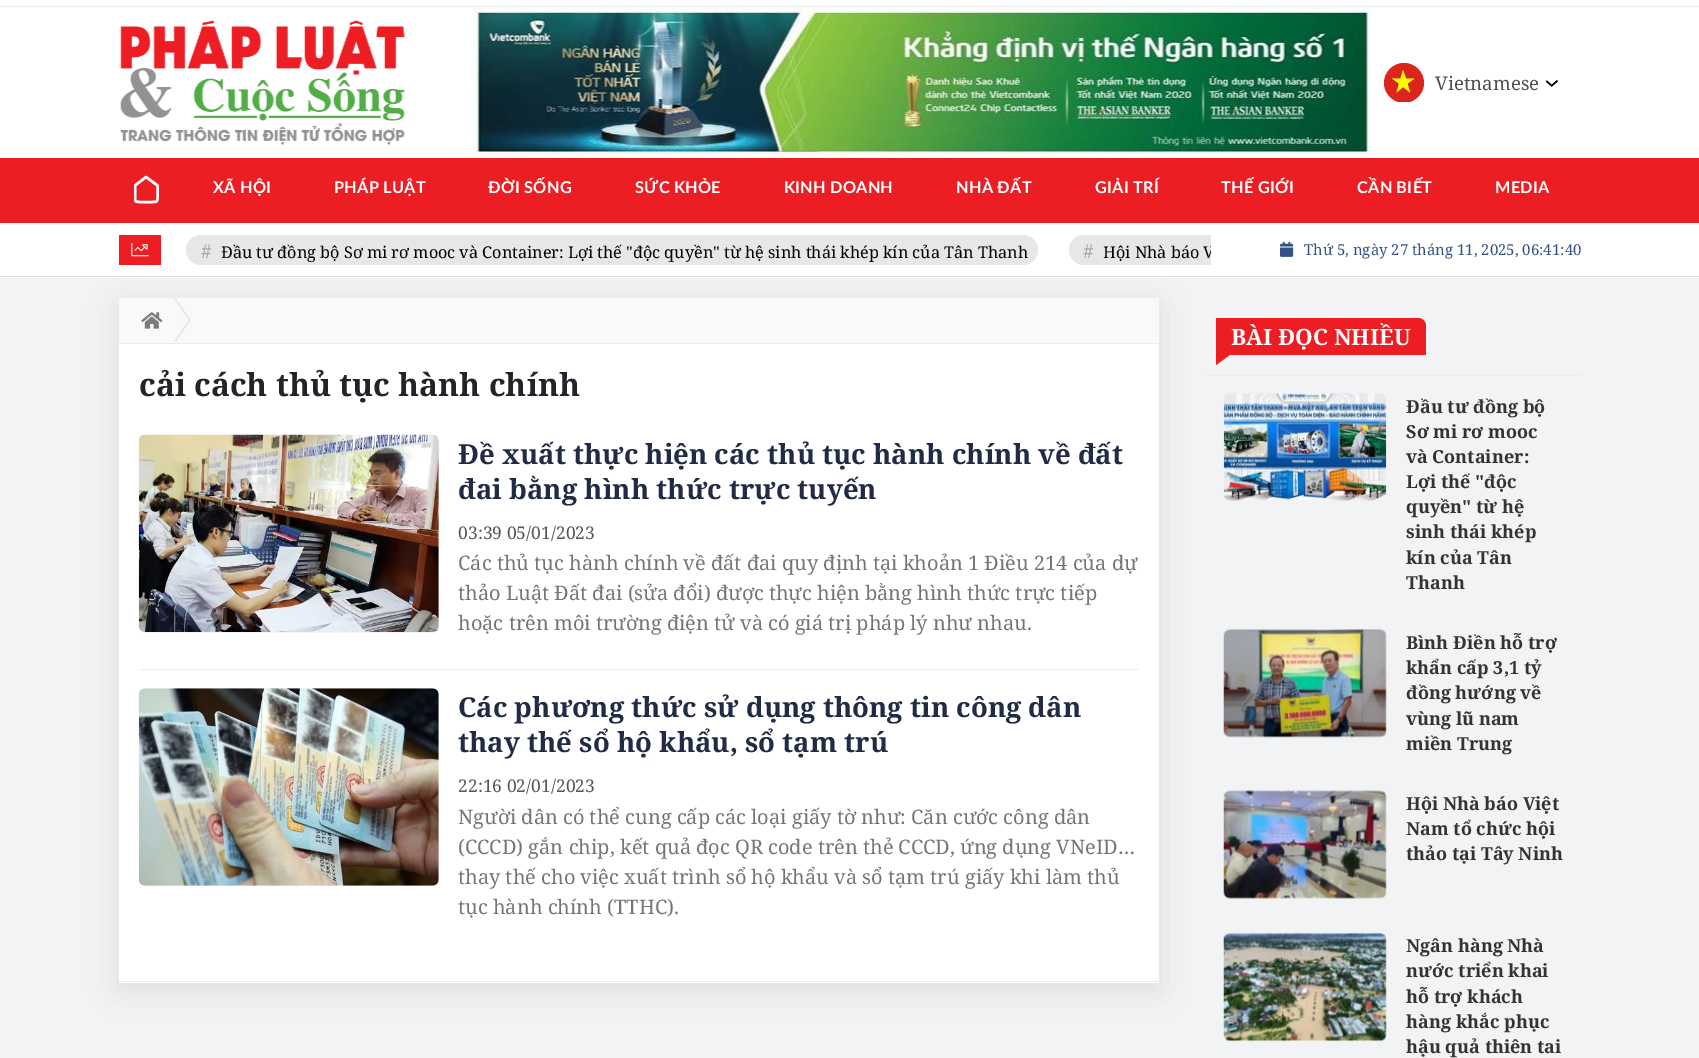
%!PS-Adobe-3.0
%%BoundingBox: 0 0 1699 1058
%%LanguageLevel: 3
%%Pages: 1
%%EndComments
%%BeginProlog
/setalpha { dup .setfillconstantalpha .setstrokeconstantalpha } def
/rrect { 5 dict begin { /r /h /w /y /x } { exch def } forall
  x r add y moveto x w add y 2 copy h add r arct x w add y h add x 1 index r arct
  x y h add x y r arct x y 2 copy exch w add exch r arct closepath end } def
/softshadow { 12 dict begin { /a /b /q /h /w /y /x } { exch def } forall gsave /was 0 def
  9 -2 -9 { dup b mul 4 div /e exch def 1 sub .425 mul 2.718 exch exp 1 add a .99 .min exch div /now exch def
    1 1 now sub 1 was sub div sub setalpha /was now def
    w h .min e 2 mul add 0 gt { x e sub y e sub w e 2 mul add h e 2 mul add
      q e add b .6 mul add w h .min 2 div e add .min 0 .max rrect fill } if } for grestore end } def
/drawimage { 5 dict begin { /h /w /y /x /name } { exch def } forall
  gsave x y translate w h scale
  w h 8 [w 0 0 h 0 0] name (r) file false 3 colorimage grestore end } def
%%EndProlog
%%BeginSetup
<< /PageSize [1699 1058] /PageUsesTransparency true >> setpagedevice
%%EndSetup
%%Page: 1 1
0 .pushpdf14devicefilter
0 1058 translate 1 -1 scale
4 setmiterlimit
1 setgray
0 0 1699 1058 rectfill
0.933 setgray
0 6 1699 1 rectfill
(images/1.raw) 120 20 285 125 drawimage
(images/2.raw) 472 7 898 150 drawimage
0.855 0.145 0.114 setrgbcolor
newpath 1404 63 moveto 1393 63 1384 72 1384 83 curveto 1384 92 1390 99 1398 102 curveto 1410 102 lineto 1418 99 1424 92 1424 83 curveto 1424 72 1415 63 1404 63 curveto closepath fill
1 1 0 setrgbcolor
newpath 1410 92.5 moveto 1403 87 lineto 1396.5 92.5 lineto 1399 83.5 lineto 1392 78.5 lineto 1400.5 78.5 lineto 1403 70 lineto 1406 78.5 lineto 1414.5 78.5 lineto 1407.5 83.5 lineto closepath eofill
(images/3.raw) 1545 80 13 7 drawimage
0.929 0.114 0.141 setrgbcolor
0 158 1699 65 rectfill
gsave
134 175 25 29 rectclip
1 setgray
2.5 setlinewidth
1 setlinecap
1 setlinejoin
newpath 135 185.5 moveto 146 177 lineto 157.5 185.5 lineto 157.5 197 lineto 157.5 202 157 202 152 202 curveto 140.5 202 lineto 135.5 202 135 202 135 197 curveto closepath stroke
grestore
0.949 0.953 0.961 setrgbcolor
0 278 1699 780 rectfill
0 setgray
119 305 1040 685 0 14 0.08 softshadow
0.882 setgray
0 276 1699 1 rectfill
0.929 0.114 0.141 setrgbcolor
119 235 42 30 rectfill
(images/4.raw) 131 243 18 14 drawimage
0.906 setgray
186 235 852 30 15 rrect fill
newpath 1084 235 moveto 1211 235 lineto 1211 265 lineto 1084 265 lineto 1075.5 265 1069 258.5 1069 250 curveto 1069 241.5 1075.5 235 1084 235 curveto closepath fill
(images/5.raw) 1280 241 14 16 drawimage
1 setgray
119 344 1040 639 rectfill
0.973 0.976 0.98 setrgbcolor
119 298 1040 45 rectfill
0.918 0.922 0.925 setrgbcolor
119 343 1040 1 rectfill
(images/6.raw) 141 312 22 17 drawimage
0.835 setgray
newpath 175 342 moveto 175 298 lineto 190 320 lineto closepath fill
0.973 0.976 0.98 setrgbcolor
newpath 174 342 moveto 174 298 lineto 189 320 lineto closepath fill
0.918 0.922 0.925 setrgbcolor
119 981 1040 1 rectfill
0.933 setgray
139 669 1000 1 rectfill
0.961 0.957 0.957 setrgbcolor
139 435 300 198 6 rrect fill
(images/7.raw) 138 434 301 198 drawimage
139 689 300 197 6 rrect fill
(images/8.raw) 138 688 301 198 drawimage
0.918 0.922 0.925 setrgbcolor
1206 375 375 1 rectfill
0.929 0.114 0.141 setrgbcolor
newpath 1216 318 moveto 1418 318 lineto 1422.5 318 1426 321.5 1426 326 curveto 1426 355 lineto 1216 355 lineto closepath fill
newpath 1216 354 moveto 1231 354 lineto 1216 365 lineto closepath fill
0.961 0.957 0.957 setrgbcolor
1224 394 162 107 6 rrect fill
(images/9.raw) 1223 393 164 108 drawimage
1224 630 162 108 6 rrect fill
(images/10.raw) 1223 629 164 109 drawimage
1224 791 162 108 6 rrect fill
(images/11.raw) 1223 790 164 109 drawimage
1224 934 162 107 6 rrect fill
(images/12.raw) 1223 932 164 110 drawimage
/NotoSerif-Regular [18.75 0 0 -18.75 0 0] selectfont
0.302 setgray
1435 90 moveto (Vietnamese) show
/Lato-Bold [16.25 0 0 -16.25 0 0] selectfont
1 setgray
213 193 moveto 0.25 0 (XÃ HỘI) ashow
334 193 moveto 0.25 0 (PHÁP LUẬT) ashow
488 193 moveto 0.25 0 (ĐỜI SỐNG) ashow
635 193 moveto 0.25 0 (SỨC KHỎE) ashow
784 193 moveto 0.25 0 (KINH DOANH) ashow
956 193 moveto 0.25 0 (NHÀ ĐẤT) ashow
1095 193 moveto 0.25 0 (GIẢI TRÍ) ashow
1221 193 moveto 0.25 0 (THẾ GIỚI) ashow
1357 193 moveto 0.25 0 (CẦN BIẾT) ashow
1495 193 moveto 0.25 0 (MEDIA) ashow
/NotoSerif-Regular [18.75 0 0 -18.75 0 0] selectfont
0.655 setgray
201 258 moveto (#) show
/NotoSerif-Regular [16.25 0 0 -16.25 0 0] selectfont
0 setgray
221 258 moveto (Đầu tư đồng bộ Sơ mi rơ mooc và Container: Lợi thế "độc quyền" từ hệ sinh thái khép kín của Tân Thanh) show
/NotoSerif-Regular [18.75 0 0 -18.75 0 0] selectfont
0.655 setgray
1083 258 moveto (#) show
gsave
174 235 1037 30 rectclip
/NotoSerif-Regular [16.25 0 0 -16.25 0 0] selectfont
0 setgray
1103 258 moveto (Hội Nhà báo V) show
grestore
/NotoSerif-Regular [15 0 0 -15 0 0] selectfont
0.2 0.318 0.514 setrgbcolor
1304 255 moveto (Thứ 5, ngày 27 tháng 11, 2025, 06:41:40) show
/NotoSerif-Bold [31.7 0 0 -31.7 0 0] selectfont
0.129 0.145 0.161 setrgbcolor
139 396 moveto (cải cách thủ tục hành chính) show
/NotoSerif-Bold [27.5 0 0 -27.5 0 0] selectfont
0.133 0.169 0.271 setrgbcolor
458 464 moveto (Đề xuất thực hiện các thủ tục hành chính về đất) show
458 499 moveto (đai bằng hình thức trực tuyến) show
/NotoSerif-Regular [17.5 0 0 -17.5 0 0] selectfont
0.341 setgray
458 539 moveto (03:39 05/01/2023) show
/NotoSerif-Regular [20 0 0 -20 0 0] selectfont
0.459 setgray
458 570 moveto (Các thủ tục hành chính về đất đai quy định tại khoản 1 Điều 214 của dự) show
458 600 moveto (thảo Luật Đất đai \(sửa đổi\) được thực hiện bằng hình thức trực tiếp) show
458 630 moveto (hoặc trên môi trường điện tử và có giá trị pháp lý như nhau.) show
/NotoSerif-Bold [27.5 0 0 -27.5 0 0] selectfont
0.133 0.169 0.271 setrgbcolor
458 717 moveto (Các phương thức sử dụng thông tin công dân) show
458 752 moveto (thay thế sổ hộ khẩu, sổ tạm trú) show
/NotoSerif-Regular [17.5 0 0 -17.5 0 0] selectfont
0.341 setgray
458 792 moveto (22:16 02/01/2023) show
/NotoSerif-Regular [20 0 0 -20 0 0] selectfont
0.459 setgray
458 824 moveto (Người dân có thể cung cấp các loại giấy tờ như: Căn cước công dân) show
458 854 moveto (\(CCCD\) gắn chip, kết quả đọc QR code trên thẻ CCCD, ứng dụng VNeID…) show
458 884 moveto (thay thế cho việc xuất trình sổ hộ khẩu và sổ tạm trú giấy khi làm thủ) show
458 914 moveto (tục hành chính \(TTHC\).) show
/NotoSerif-Bold [22.5 0 0 -22.5 0 0] selectfont
1 setgray
1231 345 moveto (BÀI ĐỌC NHIỀU) show
/NotoSerif-Bold [18 0 0 -18 0 0] selectfont
0.2 setgray
1406 413 moveto (Đầu tư đồng bộ) show
1406 438 moveto (Sơ mi rơ mooc) show
1406 463 moveto (và Container:) show
1406 488 moveto (Lợi thế "độc) show
1406 513 moveto (quyền" từ hệ) show
1406 538 moveto (sinh thái khép) show
1406 564 moveto (kín của Tân) show
1406 589 moveto (Thanh) show
1406 649 moveto (Bình Điền hỗ trợ) show
1406 674 moveto (khẩn cấp 3,1 tỷ) show
1406 699 moveto (đồng hướng về) show
1406 725 moveto (vùng lũ nam) show
1406 750 moveto (miền Trung) show
1406 810 moveto (Hội Nhà báo Việt) show
1406 835 moveto (Nam tổ chức hội) show
1406 860 moveto (thảo tại Tây Ninh) show
1406 952 moveto (Ngân hàng Nhà) show
1406 977 moveto (nước triển khai) show
1406 1003 moveto (hỗ trợ khách) show
1406 1028 moveto (hàng khắc phục) show
1406 1053 moveto (hậu quả thiên tai) show
.poppdf14devicefilter showpage
%%EOF
